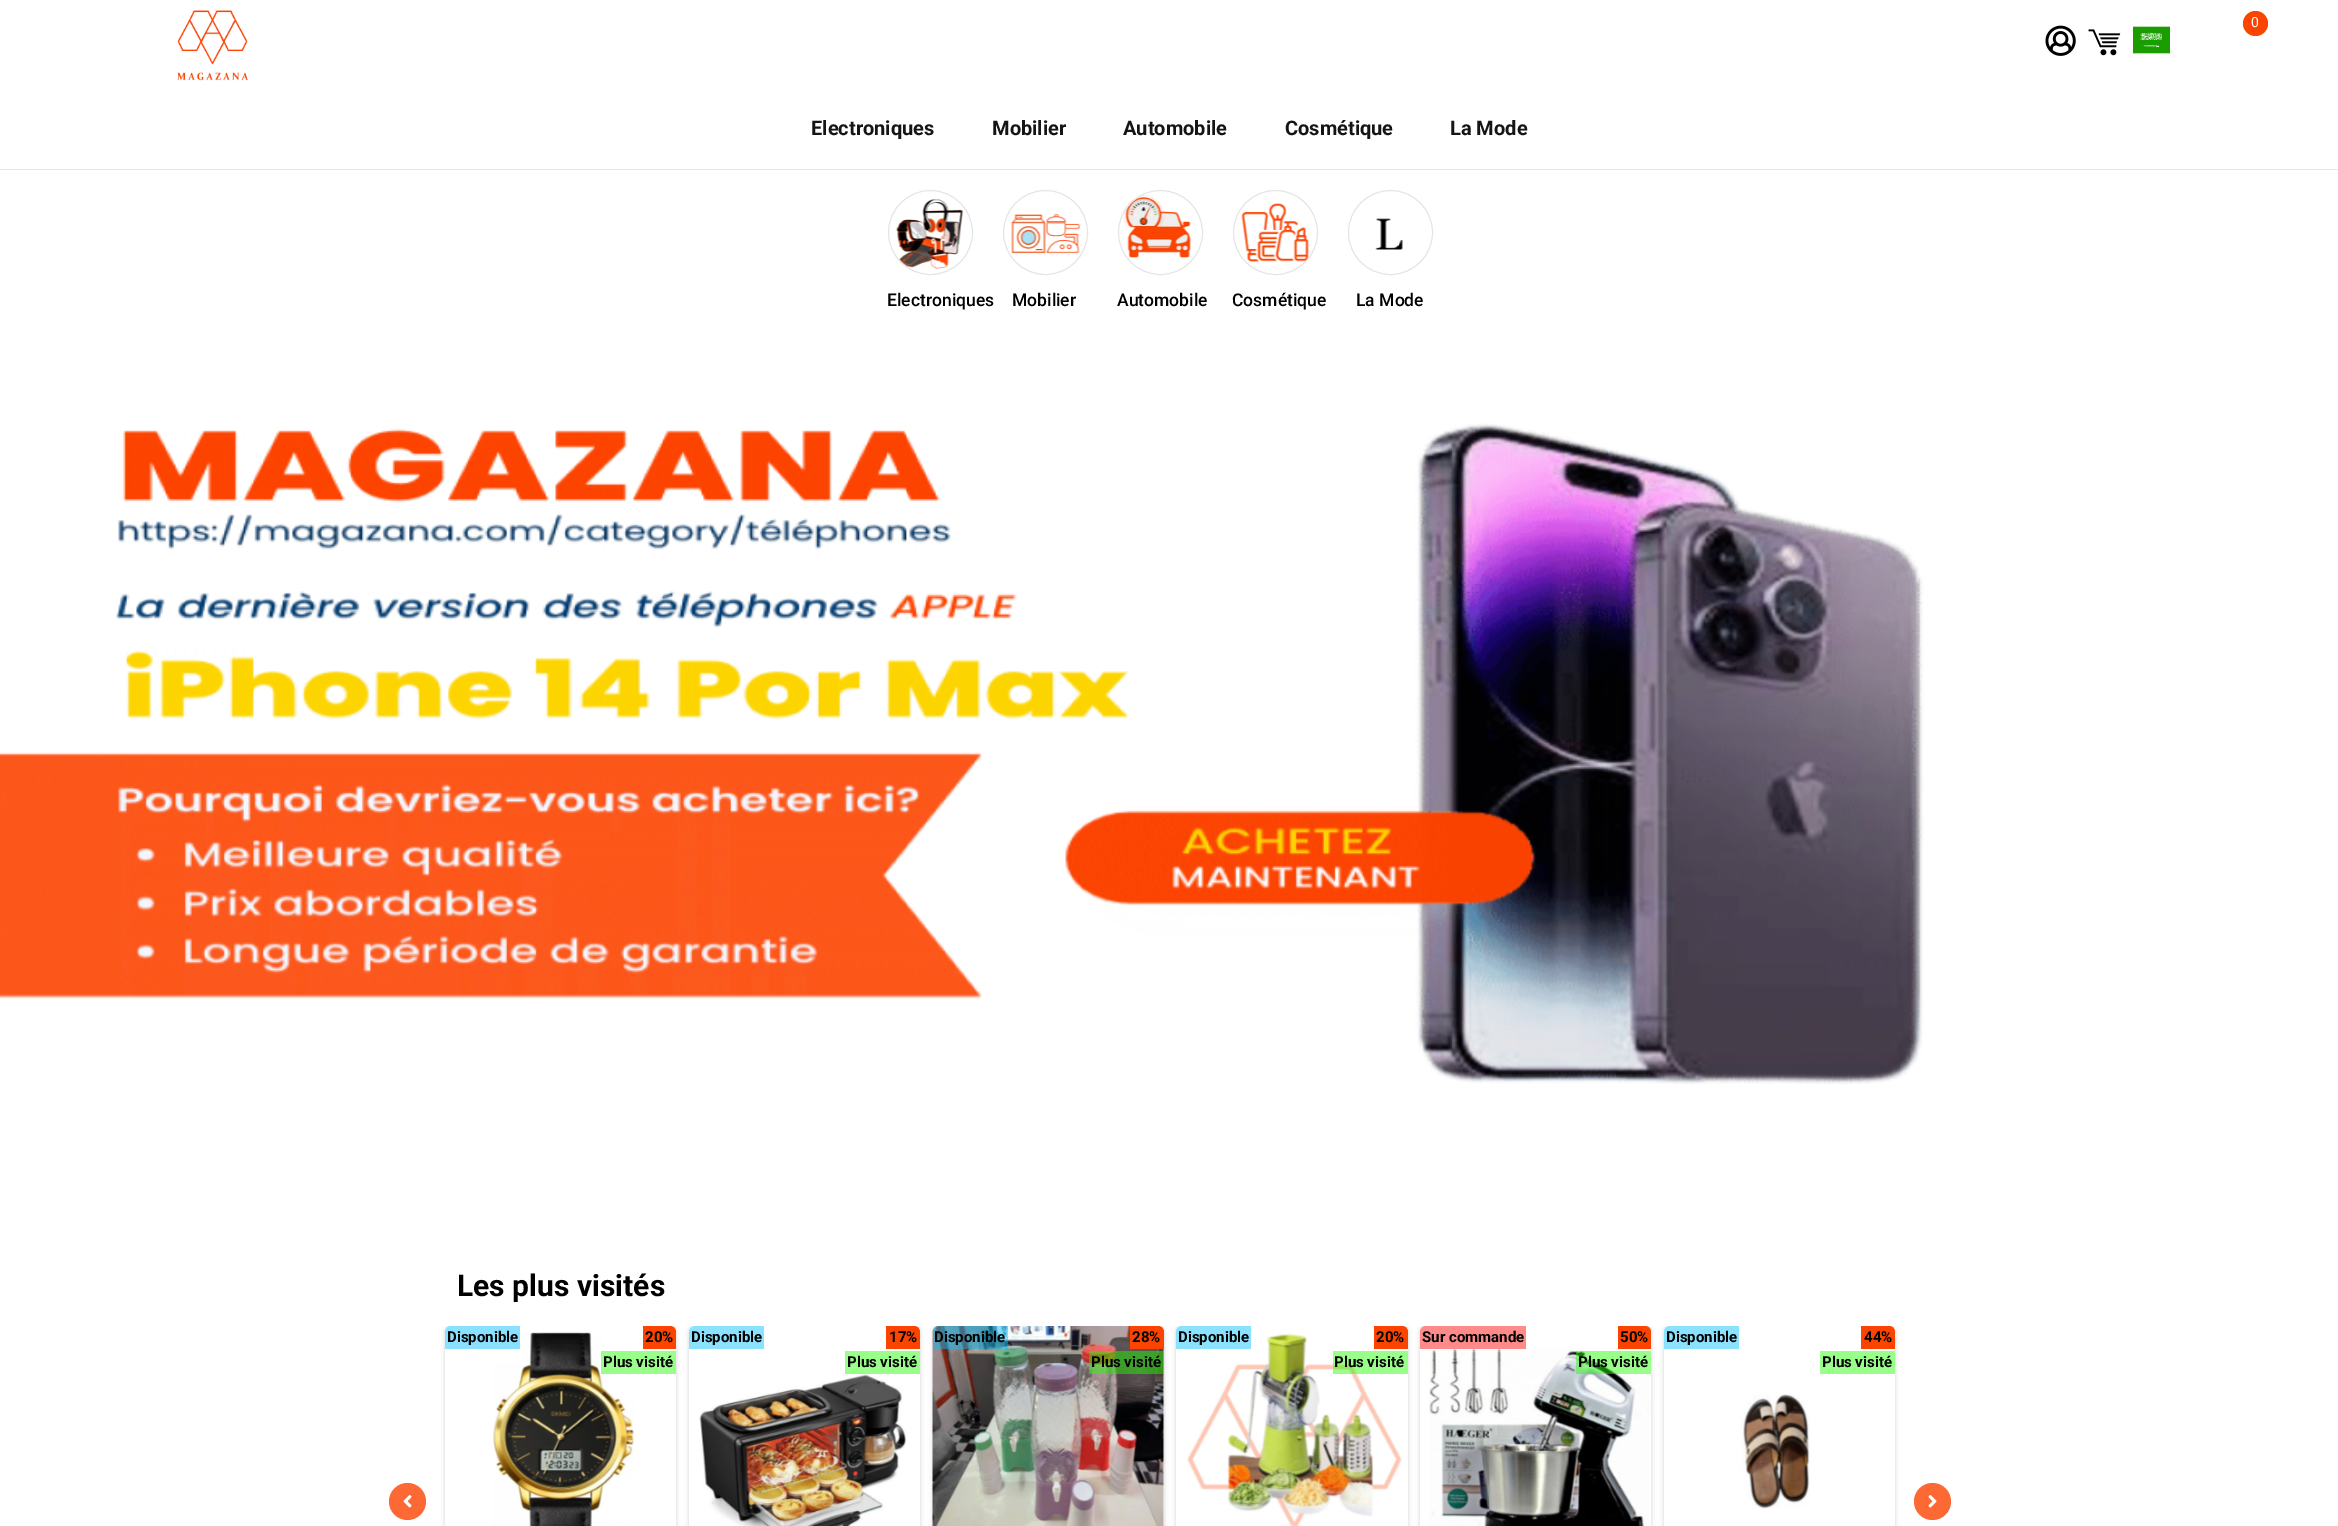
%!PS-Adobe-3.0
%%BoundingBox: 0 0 2338 1526
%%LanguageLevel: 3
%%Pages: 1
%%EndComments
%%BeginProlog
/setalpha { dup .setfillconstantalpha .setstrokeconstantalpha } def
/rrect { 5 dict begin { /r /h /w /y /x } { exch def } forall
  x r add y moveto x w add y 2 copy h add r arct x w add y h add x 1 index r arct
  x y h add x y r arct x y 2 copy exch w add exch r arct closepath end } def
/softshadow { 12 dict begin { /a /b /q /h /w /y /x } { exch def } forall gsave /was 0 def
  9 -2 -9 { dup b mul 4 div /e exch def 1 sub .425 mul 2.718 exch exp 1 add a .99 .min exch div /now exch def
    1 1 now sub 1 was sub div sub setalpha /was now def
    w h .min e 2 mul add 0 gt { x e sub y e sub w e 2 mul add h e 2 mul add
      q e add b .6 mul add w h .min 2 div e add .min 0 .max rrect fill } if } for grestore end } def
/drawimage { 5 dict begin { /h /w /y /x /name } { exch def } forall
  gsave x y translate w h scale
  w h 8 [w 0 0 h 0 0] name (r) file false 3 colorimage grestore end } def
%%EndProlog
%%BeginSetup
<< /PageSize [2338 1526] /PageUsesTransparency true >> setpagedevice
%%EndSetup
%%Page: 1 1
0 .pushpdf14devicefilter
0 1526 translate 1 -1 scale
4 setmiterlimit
1 setgray
0 0 2338 1526 rectfill
0.91 setgray
0 169 2338 1 rectfill
(images/1.raw) 177 10 72 71 drawimage
0.988 0.267 0.004 setrgbcolor
newpath 2255.5 23.5 12.5 0 360 arc closepath fill
(images/2.raw) 2088 29 33 27 drawimage
(images/3.raw) 2045 25 31 31 drawimage
(images/4.raw) 2133 26 37 28 drawimage
(images/5.raw) 896 199 68 70 drawimage
0.898 setgray
newpath 930.5 232.5 42 0 360 arc closepath stroke
(images/6.raw) 1011 214 70 40 drawimage
newpath 1045.5 232.5 42 0 360 arc closepath stroke
(images/7.raw) 1123 195 68 63 drawimage
newpath 1160.5 232.5 42 0 360 arc closepath stroke
(images/8.raw) 1241 203 68 59 drawimage
newpath 1275.5 232.5 42 0 360 arc closepath stroke
(images/9.raw) 1375 218 28 32 drawimage
newpath 1390.5 232.5 42 0 360 arc closepath stroke
(images/10.raw) 0 423 1924 662 drawimage
gsave
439 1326 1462 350 rectclip
0 setgray
445 1326 231 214 6 2.5 0.16 softshadow
grestore
1 setgray
445 1326 231 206 6 rrect fill
(images/11.raw) 493 1332 141 194 drawimage
0.541 0.882 1 setrgbcolor
newpath 451 1326 moveto 520 1326 lineto 520 1349 lineto 445 1349 lineto 445 1332 lineto 445 1328.5 447.5 1326 451 1326 curveto closepath fill
0.988 0.267 0.004 setrgbcolor
newpath 643 1326 moveto 670 1326 lineto 673.5 1326 676 1328.5 676 1332 curveto 676 1349 lineto 643 1349 lineto closepath fill
0.6 1 0.541 setrgbcolor
601 1351 75 23 rectfill
gsave
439 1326 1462 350 rectclip
0 setgray
689 1326 231 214 6 2.5 0.16 softshadow
grestore
1 setgray
689 1326 231 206 6 rrect fill
0.541 0.886 1 setrgbcolor
newpath 695 1326 moveto 764 1326 lineto 764 1349 lineto 689 1349 lineto 689 1332 lineto 689 1328.5 691.5 1326 695 1326 curveto closepath fill
0.988 0.267 0.004 setrgbcolor
newpath 886 1326 moveto 914 1326 lineto 917.5 1326 920 1328.5 920 1332 curveto 920 1349 lineto 886 1349 lineto closepath fill
0.6 1 0.541 setrgbcolor
845 1351 75 23 rectfill
(images/12.raw) 699 1374 207 152 drawimage
gsave
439 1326 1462 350 rectclip
0 setgray
933 1326 231 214 6 2.5 0.16 softshadow
grestore
1 setgray
933 1326 231 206 6 rrect fill
(images/13.raw) 932 1326 233 200 drawimage
0.46 setalpha
0 0.749 1 setrgbcolor
newpath 939 1326 moveto 1008 1326 lineto 1008 1349 lineto 933 1349 lineto 933 1332 lineto 933 1328.5 935.5 1326 939 1326 curveto closepath fill
1 setalpha
0.988 0.267 0.004 setrgbcolor
newpath 1130 1326 moveto 1158 1326 lineto 1161.5 1326 1164 1328.5 1164 1332 curveto 1164 1349 lineto 1130 1349 lineto closepath fill
0.46 setalpha
0.133 1 0 setrgbcolor
1089 1351 75 23 rectfill
gsave
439 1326 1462 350 rectclip
1 setalpha
0 setgray
1176 1326 232 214 6 2.5 0.16 softshadow
grestore
1 setalpha
1 setgray
1176 1326 232 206 6 rrect fill
(images/14.raw) 1187 1333 215 193 drawimage
0.541 0.886 1 setrgbcolor
newpath 1182 1326 moveto 1251 1326 lineto 1251 1349 lineto 1176 1349 lineto 1176 1332 lineto 1176 1328.5 1178.5 1326 1182 1326 curveto closepath fill
0.988 0.267 0.004 setrgbcolor
newpath 1374 1326 moveto 1402 1326 lineto 1405.5 1326 1408 1328.5 1408 1332 curveto 1408 1349 lineto 1374 1349 lineto closepath fill
0.46 setalpha
0.133 1 0 setrgbcolor
1333 1351 75 23 rectfill
gsave
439 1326 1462 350 rectclip
1 setalpha
0 setgray
1420 1326 231 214 6 2.5 0.16 softshadow
grestore
1 setalpha
1 setgray
1420 1326 231 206 6 rrect fill
(images/15.raw) 1429 1348 220 178 drawimage
0.46 setalpha
1 0 0 setrgbcolor
newpath 1426 1326 moveto 1526 1326 lineto 1526 1349 lineto 1420 1349 lineto 1420 1332 lineto 1420 1328.5 1422.5 1326 1426 1326 curveto closepath fill
1 setalpha
0.988 0.267 0.004 setrgbcolor
newpath 1618 1326 moveto 1645 1326 lineto 1648.5 1326 1651 1328.5 1651 1332 curveto 1651 1349 lineto 1618 1349 lineto closepath fill
0.46 setalpha
0.133 1 0 setrgbcolor
1576 1351 75 23 rectfill
gsave
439 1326 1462 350 rectclip
1 setalpha
0 setgray
1664 1326 231 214 6 2.5 0.16 softshadow
grestore
1 setalpha
1 setgray
1664 1326 231 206 6 rrect fill
0.541 0.886 1 setrgbcolor
newpath 1670 1326 moveto 1739 1326 lineto 1739 1349 lineto 1664 1349 lineto 1664 1332 lineto 1664 1328.5 1666.5 1326 1670 1326 curveto closepath fill
0.988 0.267 0.004 setrgbcolor
newpath 1861 1326 moveto 1889 1326 lineto 1892.5 1326 1895 1328.5 1895 1332 curveto 1895 1349 lineto 1861 1349 lineto closepath fill
0.6 1 0.541 setrgbcolor
1820 1351 75 23 rectfill
(images/16.raw) 1741 1394 69 115 drawimage
0.992 0.412 0.204 setrgbcolor
newpath 407.5 1501.5 18.5 0 360 arc closepath fill
(images/17.raw) 403 1495 9 13 drawimage
newpath 1932.5 1501.5 18.5 0 360 arc closepath fill
(images/18.raw) 1928 1495 9 13 drawimage
/Roboto-Regular [14 0 0 -14 0 0] selectfont
1 setgray
2251 27 moveto (0) show
/Roboto-Bold [20 0 0 -20 0 0] selectfont
0.078 0.082 0.09 setrgbcolor
811 135 moveto (Electroniques) show
992 135 moveto (Mobilier) show
1123 135 moveto (Automobile) show
1285 135 moveto (Cosmétique) show
1450 135 moveto (La Mode) show
/Roboto-Medium [17.5 0 0 -17.5 0 0] selectfont
0 setgray
887 306 moveto (Electroniques) show
1012 306 moveto (Mobilier) show
1117 306 moveto (Automobile) show
1232 306 moveto (Cosmétique) show
1356 306 moveto (La Mode) show
/Roboto-Bold [30 0 0 -30 0 0] selectfont
457 1296 moveto (Les plus visités) show
/Roboto-Bold [15 0 0 -15 0 0] selectfont
447 1342 moveto (Disponible) show
645 1342 moveto (20%) show
603 1367 moveto (Plus visité) show
691 1342 moveto (Disponible) show
889 1342 moveto (17%) show
847 1367 moveto (Plus visité) show
934 1342 moveto (Disponible) show
1132 1342 moveto (28%) show
1091 1367 moveto (Plus visité) show
1178 1342 moveto (Disponible) show
1376 1342 moveto (20%) show
1334 1367 moveto (Plus visité) show
1422 1342 moveto (Sur commande) show
1620 1342 moveto (50%) show
1578 1367 moveto (Plus visité) show
1666 1342 moveto (Disponible) show
1864 1342 moveto (44%) show
1822 1367 moveto (Plus visité) show
.poppdf14devicefilter showpage
%%EOF
